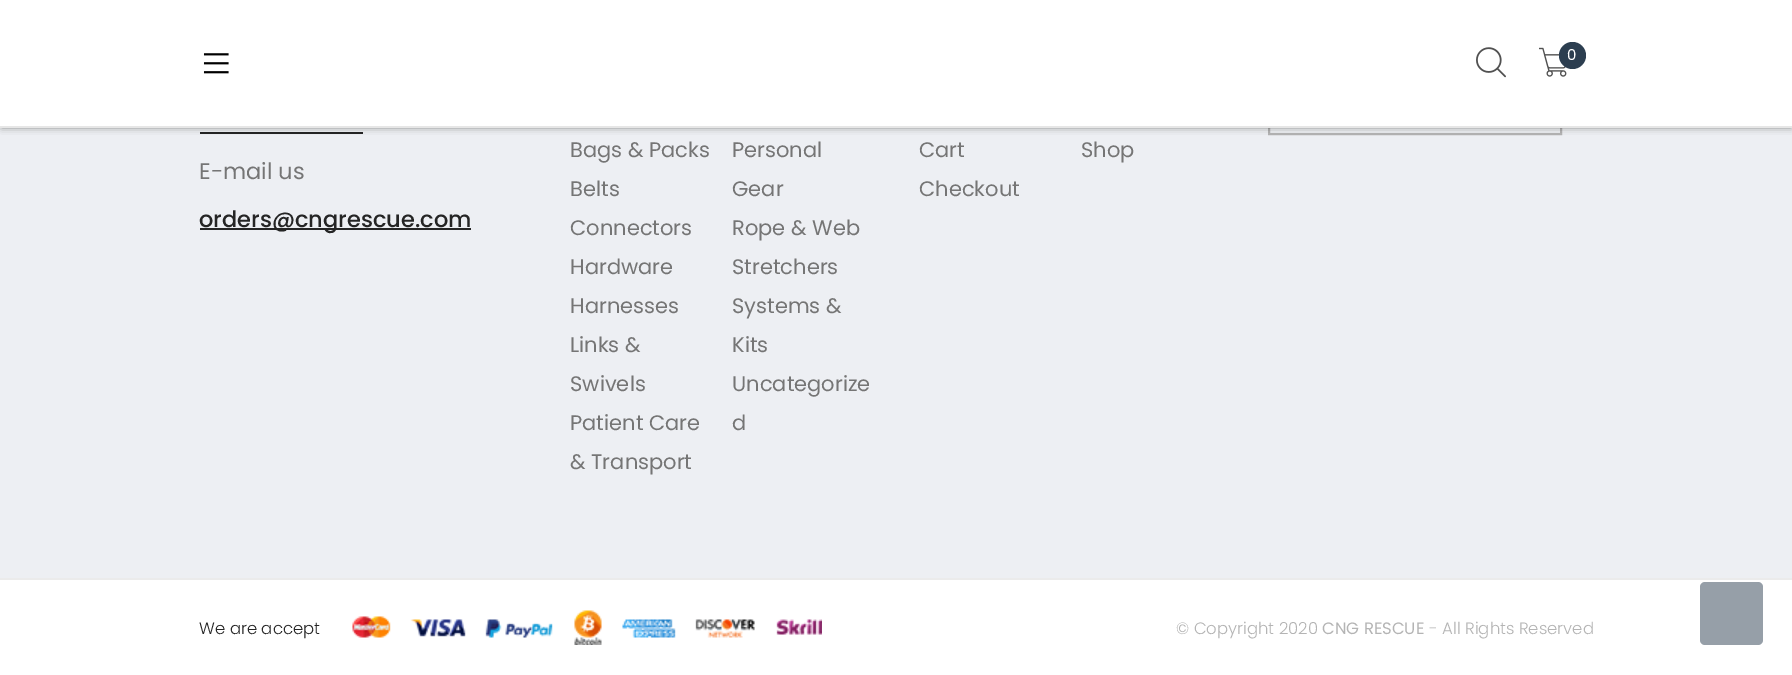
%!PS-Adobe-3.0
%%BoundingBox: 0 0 1792 675
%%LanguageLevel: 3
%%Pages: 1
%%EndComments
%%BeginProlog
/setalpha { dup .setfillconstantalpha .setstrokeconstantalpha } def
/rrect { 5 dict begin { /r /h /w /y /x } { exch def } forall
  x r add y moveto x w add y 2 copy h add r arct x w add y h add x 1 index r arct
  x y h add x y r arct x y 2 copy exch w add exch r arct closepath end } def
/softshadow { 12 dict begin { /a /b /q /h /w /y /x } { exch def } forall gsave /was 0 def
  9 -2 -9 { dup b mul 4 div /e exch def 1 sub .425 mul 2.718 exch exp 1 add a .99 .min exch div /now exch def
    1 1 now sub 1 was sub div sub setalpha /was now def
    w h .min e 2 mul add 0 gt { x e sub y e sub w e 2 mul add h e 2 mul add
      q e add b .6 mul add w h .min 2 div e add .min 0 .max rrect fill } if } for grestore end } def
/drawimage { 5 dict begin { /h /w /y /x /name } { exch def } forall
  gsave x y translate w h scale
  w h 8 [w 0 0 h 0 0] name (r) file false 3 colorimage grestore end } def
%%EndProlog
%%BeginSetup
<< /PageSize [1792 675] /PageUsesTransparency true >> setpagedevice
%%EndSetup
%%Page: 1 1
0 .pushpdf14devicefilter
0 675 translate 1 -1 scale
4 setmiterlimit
1 setgray
0 0 1792 675 rectfill
0.929 0.937 0.953 setrgbcolor
0 128 1792 450 rectfill
0.706 setgray
2 setlinewidth
1269 52 292 82 rectstroke
0.145 setgray
200 132 163 2 rectfill
0 setgray
2 2 1789 124 0 4 0.66 softshadow
1 setgray
0 0 1792 126 rectfill
0.902 setgray
0 126 1792 2 rectfill
(images/1.raw) 203 53 26 21 drawimage
(images/2.raw) 1476 47 30 31 drawimage
(images/3.raw) 1539 47 28 30 drawimage
0.173 0.243 0.314 setrgbcolor
newpath 1572.5 55.5 13.5 0 360 arc closepath fill
0.145 setgray
200 228 271 2 rectfill
0.922 setgray
0 578 1792 2 rectfill
(images/4.raw) 352 610 470 35 drawimage
0.588 0.624 0.659 setrgbcolor
1700 582 63 63 5 rrect fill
/Poppins-Regular [15 0 0 -15 0 0] selectfont
1 setgray
1567 60 moveto (0) show
/Poppins-Regular [22.5 0 0 -22.5 0 0] selectfont
0.459 setgray
199 179 moveto (E-mail us) show
/Poppins-Medium [22.5 0 0 -22.5 0 0] selectfont
0.145 setgray
199 227 moveto (orders@cngrescue.com) show
/Poppins-Regular [21 0 0 -21 0 0] selectfont
0.459 setgray
570 157 moveto (Bags & Packs) show
732 157 moveto (Personal) show
732 196 moveto (Gear) show
570 196 moveto (Belts) show
570 235 moveto (Connectors) show
732 235 moveto (Rope & Web) show
570 274 moveto (Hardware) show
732 274 moveto (Stretchers) show
570 313 moveto (Harnesses) show
732 313 moveto (Systems &) show
732 352 moveto (Kits) show
570 352 moveto (Links &) show
570 391 moveto (Swivels) show
732 391 moveto (Uncategorize) show
732 430 moveto (d) show
570 430 moveto (Patient Care) show
570 469 moveto (& Transport) show
919 157 moveto (Cart) show
1081 157 moveto (Shop) show
919 196 moveto (Checkout) show
/Poppins-Light [16.5 0 0 -16.5 0 0] selectfont
0.145 setgray
199 634 moveto (We are accept) show
0.706 setgray
1176 634 moveto (© Copyright 2020) show
/Poppins-Regular [16.5 0 0 -16.5 0 0] selectfont
1322 634 moveto (CNG RESCUE) show
/Poppins-Light [16.5 0 0 -16.5 0 0] selectfont
1429 634 moveto (- All Rights Reserved) show
.poppdf14devicefilter showpage
%%EOF
